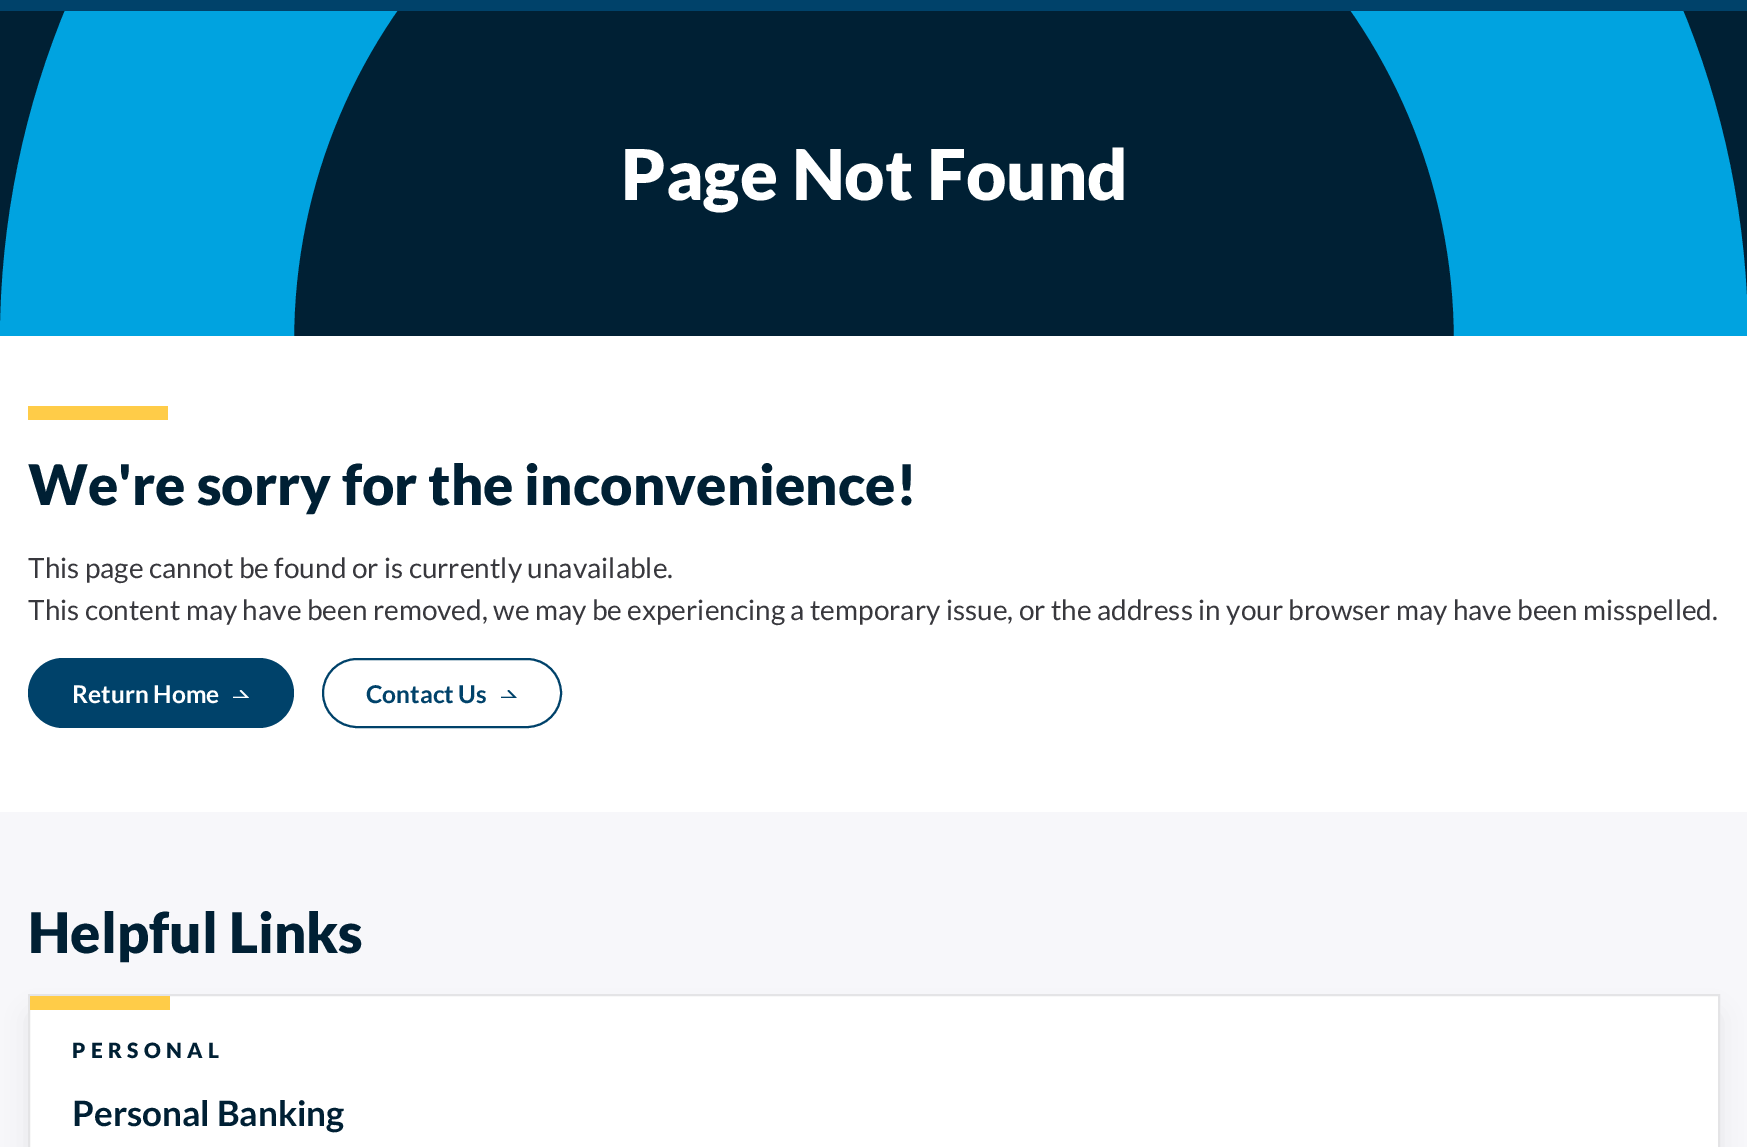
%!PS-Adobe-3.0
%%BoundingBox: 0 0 1747 1147
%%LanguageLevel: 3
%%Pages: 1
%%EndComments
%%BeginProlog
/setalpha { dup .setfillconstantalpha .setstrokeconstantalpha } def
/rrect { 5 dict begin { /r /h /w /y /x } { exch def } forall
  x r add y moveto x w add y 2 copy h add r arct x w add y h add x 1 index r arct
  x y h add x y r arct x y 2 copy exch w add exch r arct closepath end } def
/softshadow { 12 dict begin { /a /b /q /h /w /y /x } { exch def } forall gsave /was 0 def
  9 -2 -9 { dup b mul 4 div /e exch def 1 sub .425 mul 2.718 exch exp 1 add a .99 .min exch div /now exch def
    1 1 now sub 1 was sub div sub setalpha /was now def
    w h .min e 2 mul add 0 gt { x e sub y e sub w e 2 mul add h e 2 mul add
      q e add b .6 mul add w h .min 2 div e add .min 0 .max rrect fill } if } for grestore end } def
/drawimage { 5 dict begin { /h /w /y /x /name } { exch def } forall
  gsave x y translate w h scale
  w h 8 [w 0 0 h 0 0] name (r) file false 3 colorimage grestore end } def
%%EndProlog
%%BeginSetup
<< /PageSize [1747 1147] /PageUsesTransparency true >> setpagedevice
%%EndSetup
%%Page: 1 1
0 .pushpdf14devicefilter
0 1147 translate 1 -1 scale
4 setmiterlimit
1 setgray
0 0 1747 1147 rectfill
0 0.259 0.416 setrgbcolor
0 0 1747 11 rectfill
0 0.125 0.204 setrgbcolor
0 11 1747 325 rectfill
gsave
0 11 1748 325 rectclip
0 0.639 0.878 setrgbcolor
newpath 874 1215 moveto 392 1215 0 823 0 341 curveto 0 -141 392 -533 874 -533 curveto 1356 -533 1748 -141 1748 341 curveto 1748 823 1356 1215 874 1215 curveto closepath 874 -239 moveto 554 -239 294 21 294 341 curveto 294 661 554 921 874 921 curveto 1194 921 1454 661 1454 341 curveto 1454 21 1194 -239 874 -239 curveto closepath fill
grestore
1 0.8 0.282 setrgbcolor
28 406 140 14 rectfill
0 0.259 0.416 setrgbcolor
28 658 266 70 35 rrect fill
(images/1.raw) 233 690 16 8 drawimage
2 setlinewidth
323 659 238 68 34 rrect stroke
(images/2.raw) 501 690 16 8 drawimage
0.969 0.969 0.98 setrgbcolor
0 812 1747 335 rectfill
0 setgray
33 1017 1682 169 0 13 0.1 softshadow
1 setgray
newpath 29 995 moveto 1719 995 lineto 1719 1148 lineto 29 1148 lineto closepath gsave fill grestore
0.894 0.894 0.902 setrgbcolor
stroke
1 0.8 0.282 setrgbcolor
30 996 140 14 rectfill
/Lato-Black [70 0 0 -70 0 0] selectfont
1 setgray
621 200 moveto (Page Not Found) show
/Lato-Black [56 0 0 -56 0 0] selectfont
0 0.125 0.204 setrgbcolor
28 505 moveto (We're sorry for the inconvenience!) show
/Lato-Regular [28 0 0 -28 0 0] selectfont
0.22 0.22 0.239 setrgbcolor
28 578 moveto (This page cannot be found or is currently unavailable.) show
28 620 moveto (This content may have been removed, we may be experiencing a temporary issue, or the address in your browser may have been misspelled.) show
/Lato-Bold [24.5 0 0 -24.5 0 0] selectfont
1 setgray
72 703 moveto (Return Home) show
0 0.259 0.416 setrgbcolor
366 703 moveto (Contact Us) show
/Lato-Black [56 0 0 -56 0 0] selectfont
0 0.125 0.204 setrgbcolor
28 953 moveto (Helpful Links) show
/Lato-Black [21 0 0 -21 0 0] selectfont
72 1058 moveto 5.25 0 (PERSONAL) ashow
/Lato-Bold [35 0 0 -35 0 0] selectfont
72 1126 moveto (Personal Banking) show
.poppdf14devicefilter showpage
%%EOF
